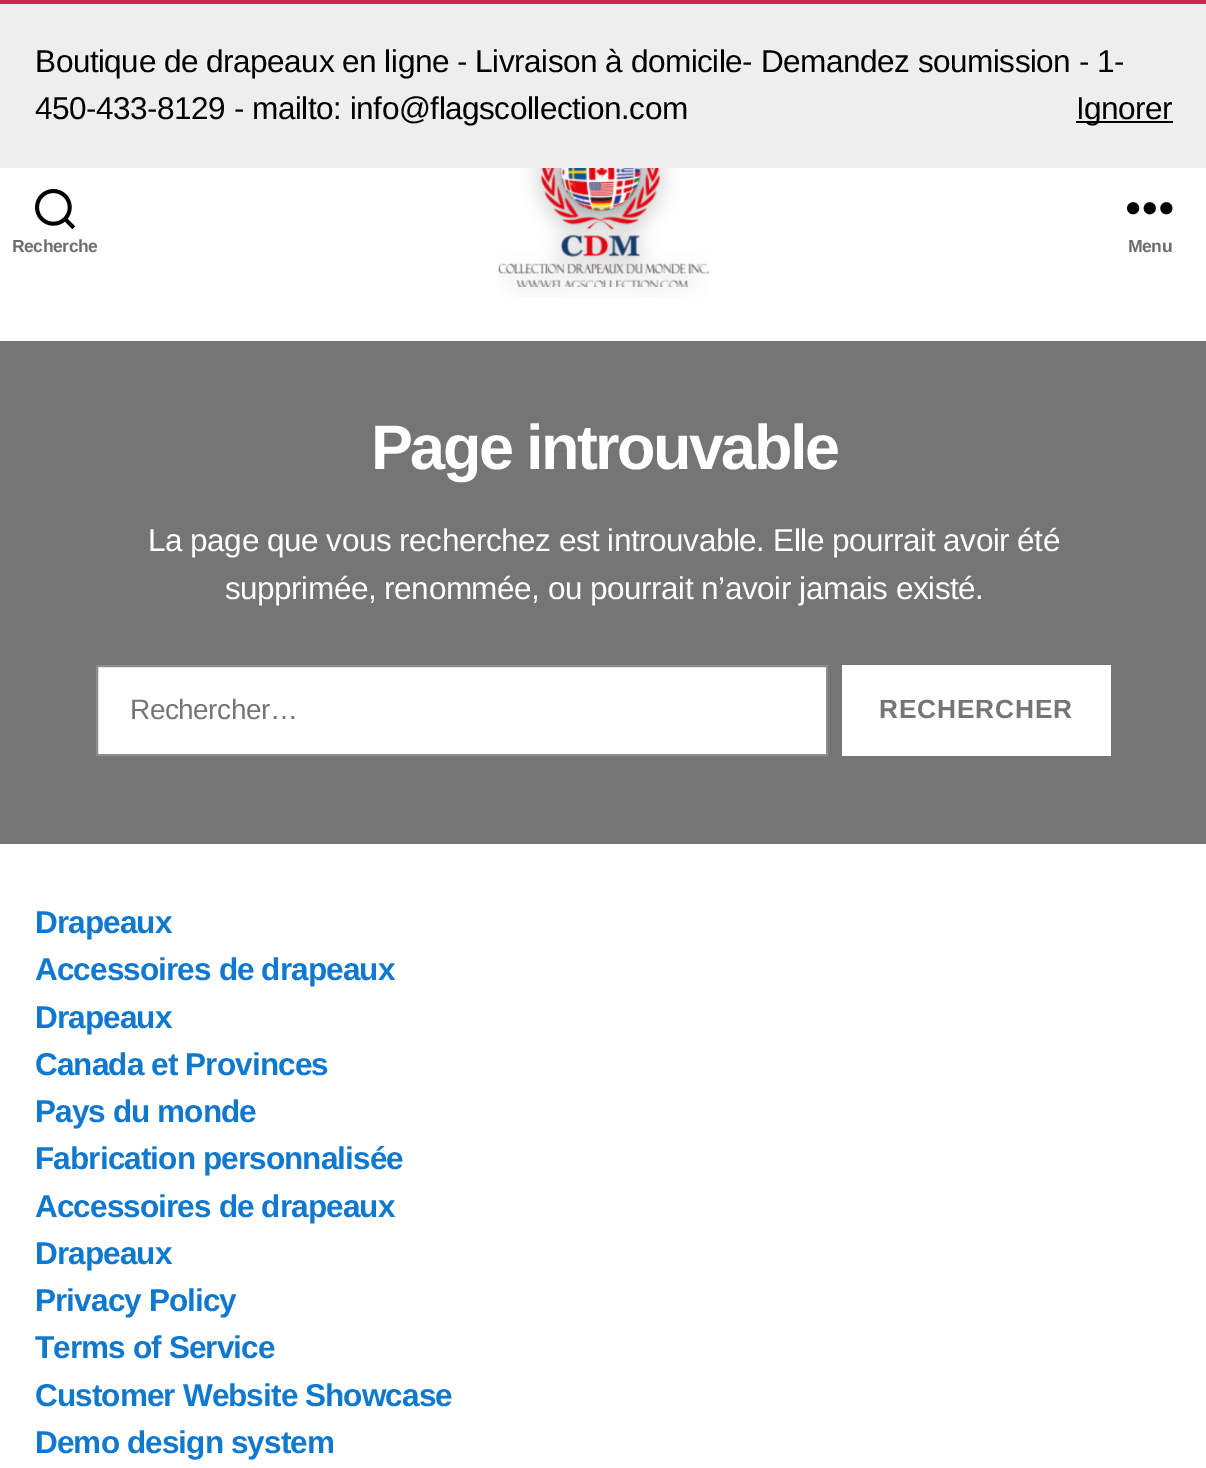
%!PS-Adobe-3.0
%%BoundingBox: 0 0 1206 1468
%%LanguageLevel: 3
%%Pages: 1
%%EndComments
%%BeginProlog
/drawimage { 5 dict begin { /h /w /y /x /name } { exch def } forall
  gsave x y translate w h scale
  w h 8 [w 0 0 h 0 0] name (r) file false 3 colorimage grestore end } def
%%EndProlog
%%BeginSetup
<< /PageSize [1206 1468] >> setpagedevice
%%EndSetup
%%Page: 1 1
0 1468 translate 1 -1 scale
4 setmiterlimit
0.459 setgray
0 0 1206 1468 rectfill
0.933 setgray
0 4 1206 164 rectfill
0.804 0.149 0.325 setrgbcolor
0 0 1206 4 rectfill
0 setgray
1076 121 97 2 rectfill
1 setgray
0 168 1206 173 rectfill
(images/1.raw) 35 189 40 41 drawimage
(images/2.raw) 498 168 211 129 drawimage
(images/3.raw) 1127 202 46 13 drawimage
newpath 97 666 moveto 827 666 lineto 827 755 lineto 97 755 lineto closepath gsave fill grestore
0.549 setgray
2 setlinewidth
stroke
1 setgray
842 665 269 91 rectfill
0 844 1206 624 rectfill
/LiberationSans-Regular [31.5 0 0 -31.5 0 0] selectfont
0 setgray
35 72 moveto -0.47 0 (Boutique de drapeaux en ligne - Livraison à domicile- Demandez soumission - 1-) ashow
35 119 moveto -0.47 0 (450-433-8129 - mailto: info@flagscollection.com) ashow
1076 119 moveto -0.47 0 (Ignorer) ashow
/LiberationSans-Bold [17.5 0 0 -17.5 0 0] selectfont
0.427 setgray
12 252 moveto -0.47 0 (Recherche) ashow
1128 252 moveto -0.47 0 (Menu) ashow
/LiberationSans-Bold [63 0 0 -63 0 0] selectfont
1 setgray
371 469 moveto -2.6 0 (Page introuvable) ashow
/LiberationSans-Regular [31.5 0 0 -31.5 0 0] selectfont
148 551 moveto -0.47 0 (La page que vous recherchez est introuvable. Elle pourrait avoir été) ashow
225 599 moveto -0.47 0 (supprimée, renommée, ou pourrait n’avoir jamais existé.) ashow
/LiberationSans-Regular [28 0 0 -28 0 0] selectfont
0.459 setgray
130 719 moveto -0.5 0 (Rechercher…) ashow
/LiberationSans-Bold [26.25 0 0 -26.25 0 0] selectfont
879 718 moveto 0.9 0 (RECHERCHER) ashow
/LiberationSans-Bold [31.5 0 0 -31.5 0 0] selectfont
0.063 0.475 0.812 setrgbcolor
35 933 moveto -0.9 0 (Drapeaux) ashow
35 980 moveto -0.9 0 (Accessoires de drapeaux) ashow
35 1028 moveto -0.9 0 (Drapeaux) ashow
35 1075 moveto -0.9 0 (Canada et Provinces) ashow
35 1122 moveto -0.9 0 (Pays du monde) ashow
35 1169 moveto -0.9 0 (Fabrication personnalisée) ashow
35 1217 moveto -0.9 0 (Accessoires de drapeaux) ashow
35 1264 moveto -0.9 0 (Drapeaux) ashow
35 1311 moveto -0.9 0 (Privacy Policy) ashow
35 1358 moveto -0.9 0 (Terms of Service) ashow
35 1406 moveto -0.9 0 (Customer Website Showcase) ashow
35 1453 moveto -0.9 0 (Demo design system) ashow
showpage
%%EOF
